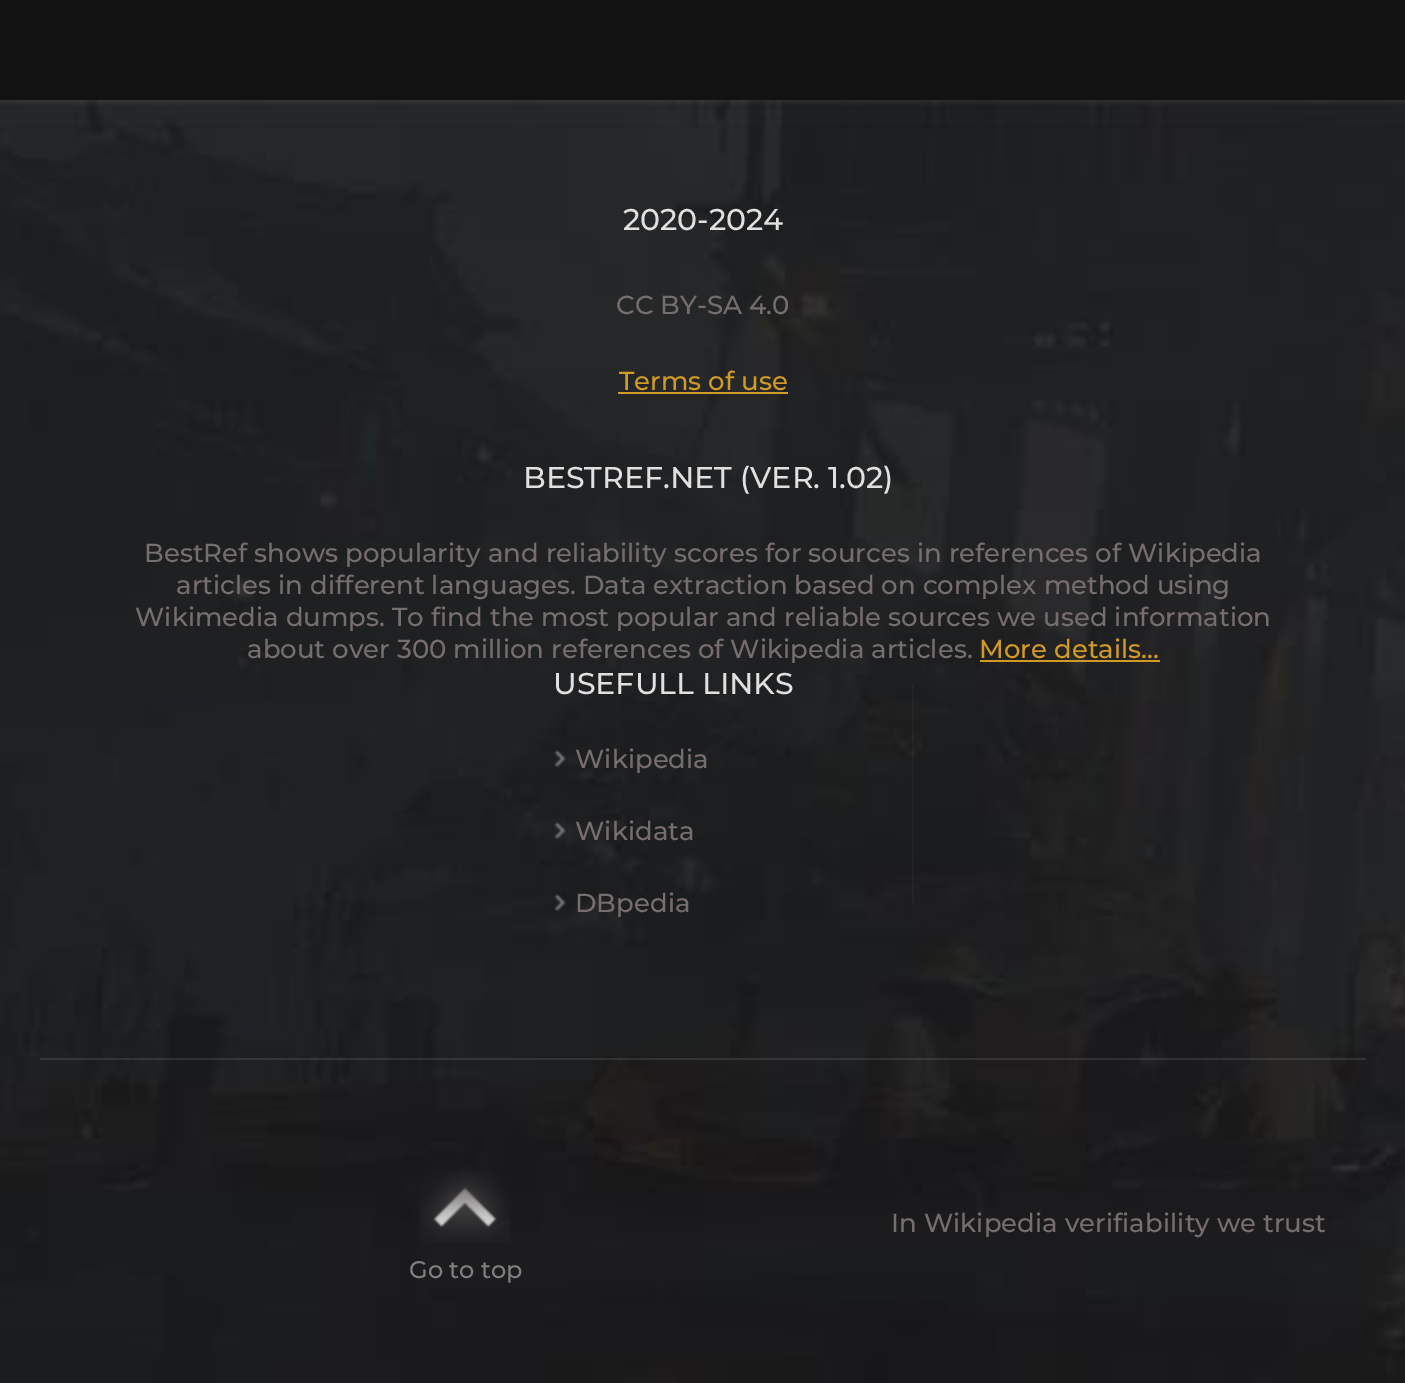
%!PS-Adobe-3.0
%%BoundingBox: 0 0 1405 1383
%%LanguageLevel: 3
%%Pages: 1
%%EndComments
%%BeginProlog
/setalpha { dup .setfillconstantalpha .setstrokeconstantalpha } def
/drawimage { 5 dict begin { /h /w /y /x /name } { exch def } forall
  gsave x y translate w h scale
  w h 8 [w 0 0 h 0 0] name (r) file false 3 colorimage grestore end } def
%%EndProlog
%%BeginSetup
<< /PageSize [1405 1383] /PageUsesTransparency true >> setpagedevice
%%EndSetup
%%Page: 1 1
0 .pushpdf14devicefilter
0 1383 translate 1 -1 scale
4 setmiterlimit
0.071 setgray
0 0 1405 1383 rectfill
(images/1.raw) 0 100 1405 1283 drawimage
0.1 setalpha
0.957 setgray
40 1058 1326 2 rectfill
1 setalpha
0.816 0.604 0.149 setrgbcolor
618 392 170 2 rectfill
980 660 180 2 rectfill
0.03 setalpha
1 setgray
912 684 2 220 rectfill
1 setalpha
(images/2.raw) 554 750 12 18 drawimage
(images/3.raw) 554 822 12 18 drawimage
(images/4.raw) 554 894 12 18 drawimage
(images/5.raw) 419 1171 92 71 drawimage
/Montserrat-Medium [30 0 0 -30 0 0] selectfont
0.878 setgray
623 230 moveto (2020-2024) show
/Montserrat-Medium [26 0 0 -26 0 0] selectfont
0.463 0.427 0.427 setrgbcolor
616 314 moveto (CC BY-SA 4.0) show
0.816 0.604 0.149 setrgbcolor
619 390 moveto (Terms of use) show
/Montserrat-Medium [30 0 0 -30 0 0] selectfont
0.878 setgray
523 488 moveto (BESTREF.NET \(VER. 1.02\)) show
/Montserrat-Medium [26 0 0 -26 0 0] selectfont
0.463 0.427 0.427 setrgbcolor
144 562 moveto (BestRef shows popularity and reliability scores for sources in references of Wikipedia) show
176 594 moveto (articles in different languages. Data extraction based on complex method using) show
135 626 moveto (Wikimedia dumps. To find the most popular and reliable sources we used information) show
247 658 moveto (about over 300 million references of Wikipedia articles.) show
0.816 0.604 0.149 setrgbcolor
979 658 moveto (More details...) show
/Montserrat-Medium [30 0 0 -30 0 0] selectfont
0.878 setgray
553 694 moveto (USEFULL LINKS) show
/Montserrat-Medium [26 0 0 -26 0 0] selectfont
0.463 0.427 0.427 setrgbcolor
575 768 moveto (Wikipedia) show
575 840 moveto (Wikidata) show
575 912 moveto (DBpedia) show
891 1232 moveto (In Wikipedia verifiability we trust) show
/Montserrat-Medium [24 0 0 -24 0 0] selectfont
0.502 setgray
409 1278 moveto (Go to top) show
.poppdf14devicefilter showpage
%%EOF
